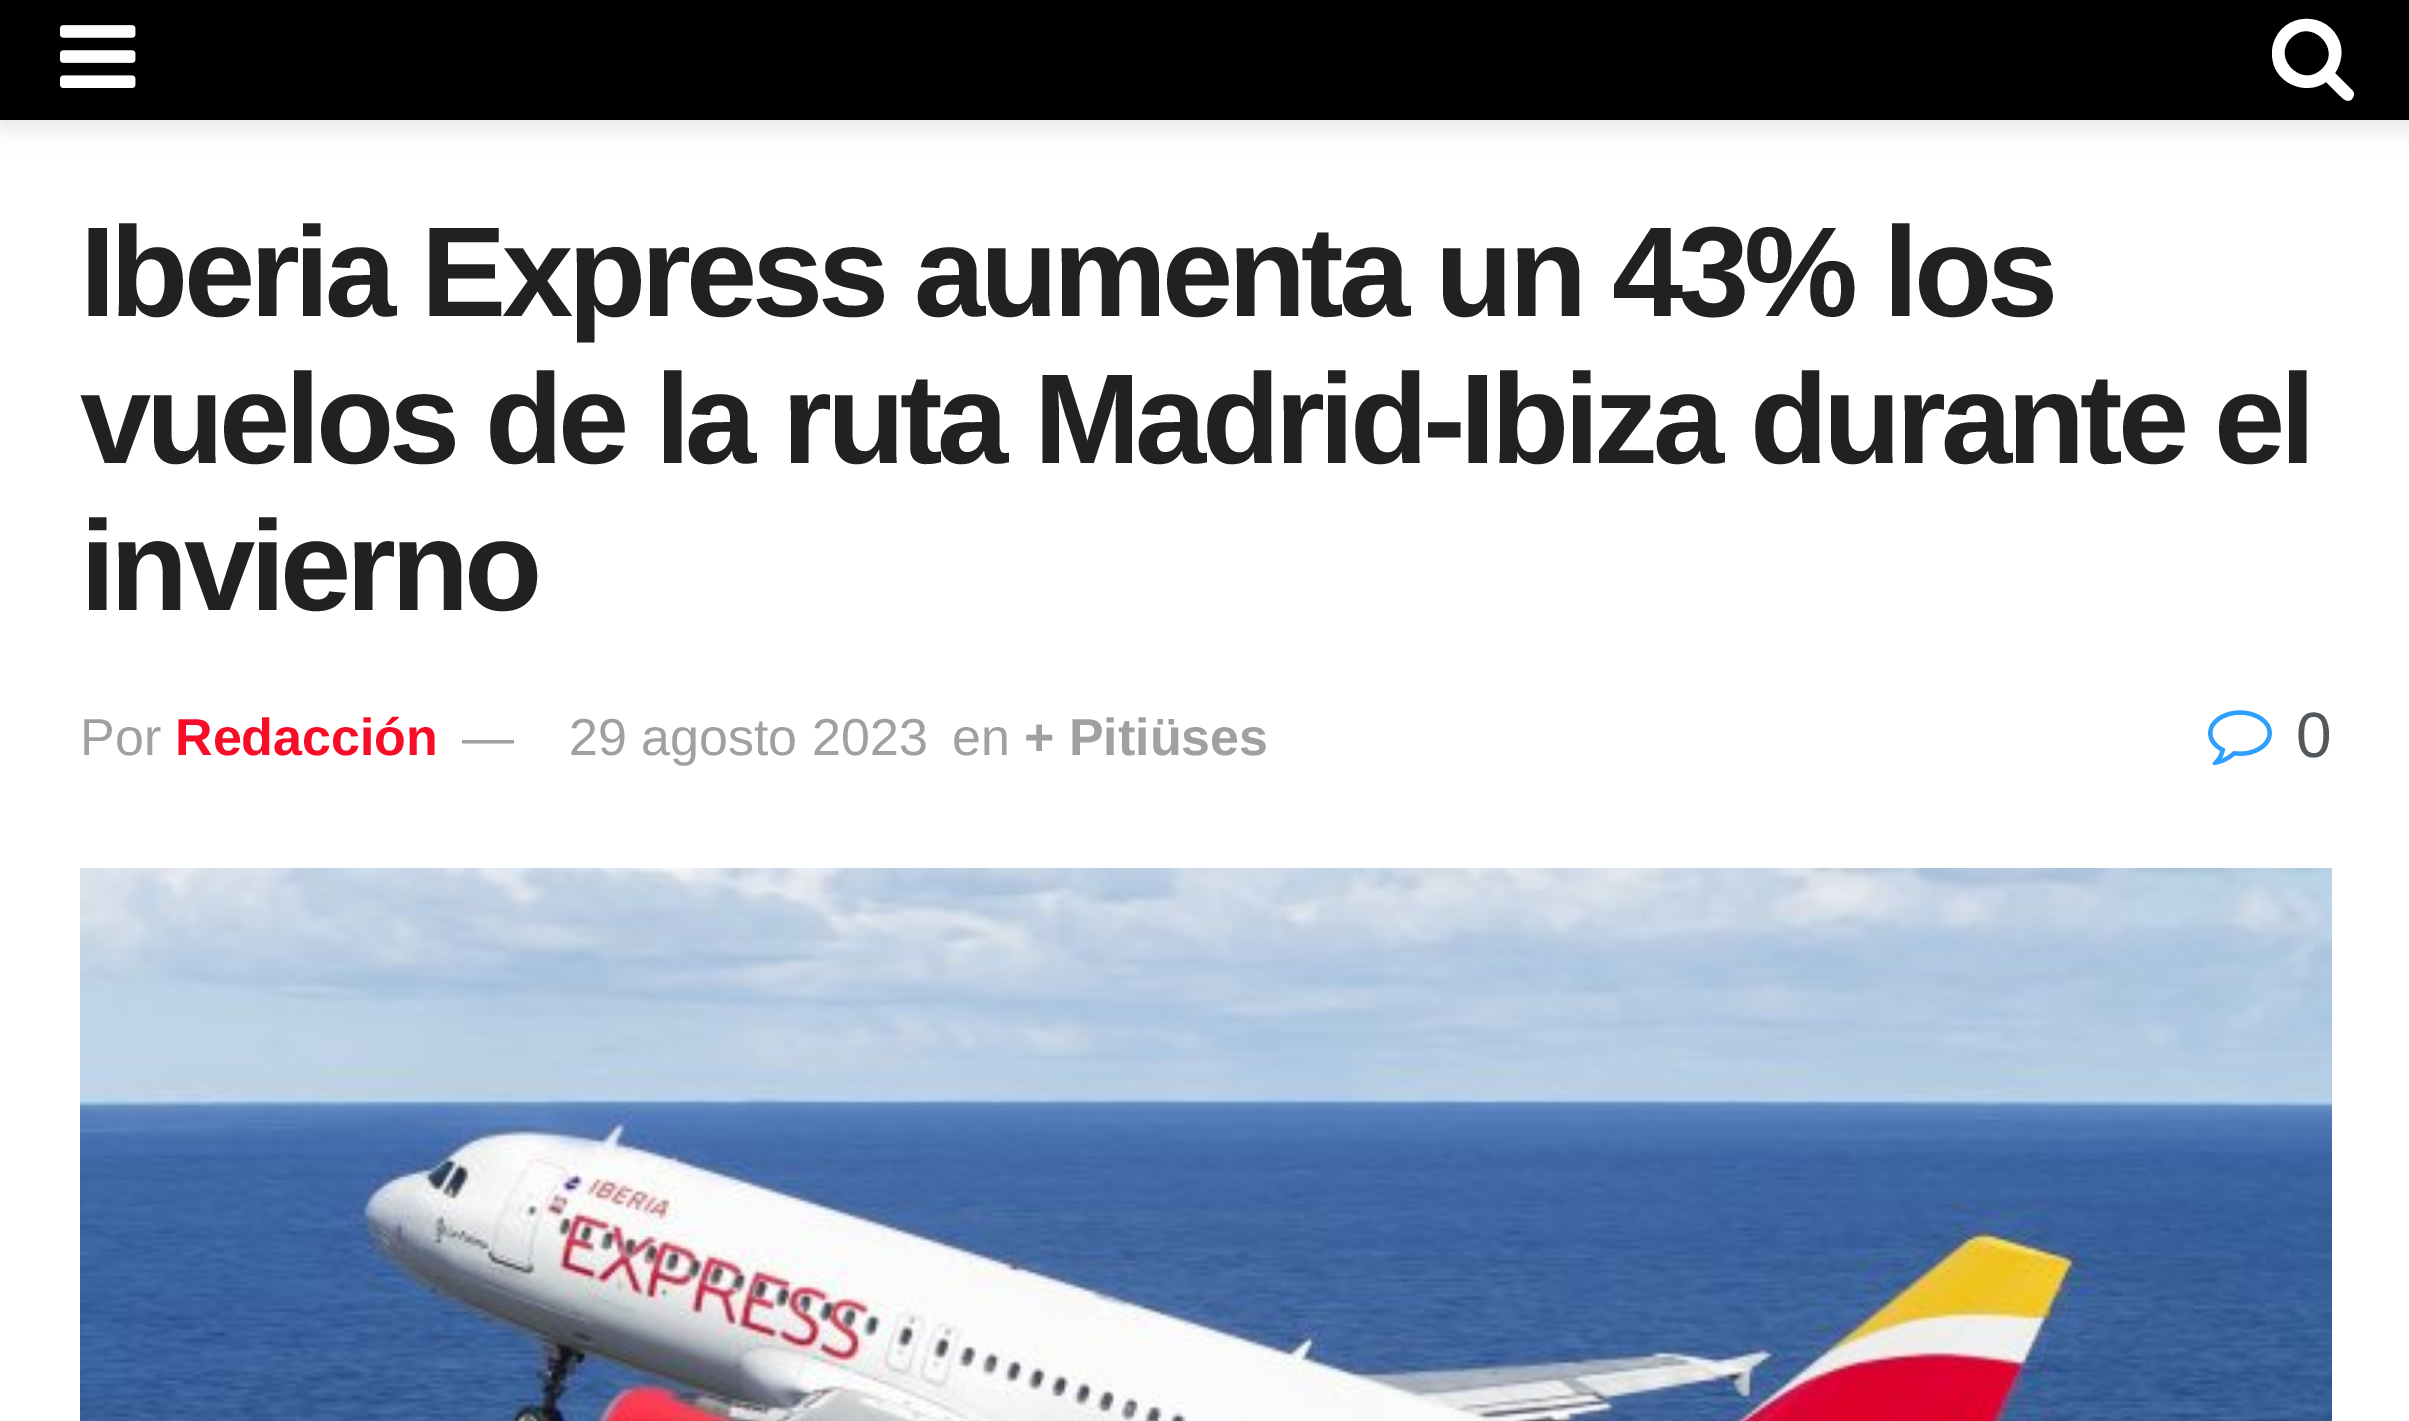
%!PS-Adobe-3.0
%%BoundingBox: 0 0 2409 1421
%%LanguageLevel: 3
%%Pages: 1
%%EndComments
%%BeginProlog
/setalpha { dup .setfillconstantalpha .setstrokeconstantalpha } def
/rrect { 5 dict begin { /r /h /w /y /x } { exch def } forall
  x r add y moveto x w add y 2 copy h add r arct x w add y h add x 1 index r arct
  x y h add x y r arct x y 2 copy exch w add exch r arct closepath end } def
/softshadow { 12 dict begin { /a /b /q /h /w /y /x } { exch def } forall gsave /was 0 def
  9 -2 -9 { dup b mul 4 div /e exch def 1 sub .425 mul 2.718 exch exp 1 add a .99 .min exch div /now exch def
    1 1 now sub 1 was sub div sub setalpha /was now def
    w h .min e 2 mul add 0 gt { x e sub y e sub w e 2 mul add h e 2 mul add
      q e add b .6 mul add w h .min 2 div e add .min 0 .max rrect fill } if } for grestore end } def
/drawimage { 5 dict begin { /h /w /y /x /name } { exch def } forall
  gsave x y translate w h scale
  w h 8 [w 0 0 h 0 0] name (r) file false 3 colorimage grestore end } def
%%EndProlog
%%BeginSetup
<< /PageSize [2409 1421] /PageUsesTransparency true >> setpagedevice
%%EndSetup
%%Page: 1 1
0 .pushpdf14devicefilter
0 1421 translate 1 -1 scale
4 setmiterlimit
1 setgray
0 0 2409 1421 rectfill
0 setgray
0 8 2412 120 0 12 0.1 softshadow
0 0 2409 120 rectfill
(images/1.raw) 60 25 76 63 drawimage
1 setgray
newpath 2322 69 moveto 2343 49 2311 17 2291 38 curveto 2271 58 2302 89 2322 69 curveto closepath 2354 94 moveto 2354 96 2353 98 2351 100 curveto 2345 103 2341 96 2337 93 curveto 2326 82 lineto 2309 94 2284 87 2275 68 curveto 2272 61 2271 53 2273 45 curveto 2282 11 2329 10 2340 43 curveto 2343 53 2341 64 2335 73 curveto 2352 90 lineto 2353 91 2354 93 2354 94 curveto closepath fill
(images/2.raw) 2208 710 64 56 drawimage
(images/3.raw) 80 868 2252 553 drawimage
/LiberationSans-Bold [128 0 0 -128 0 0] selectfont
0.129 setgray
80 316 moveto -5.1 0 (Iberia Express aumenta un 43% los) ashow
80 463 moveto -5.1 0 (vuelos de la ruta Madrid-Ibiza durante el) ashow
80 610 moveto -5.1 0 (invierno) ashow
/LiberationSans-Regular [52 0 0 -52 0 0] selectfont
0.627 setgray
80 755 moveto (Por) show
/LiberationSans-Bold [52 0 0 -52 0 0] selectfont
0.969 0.051 0.157 setrgbcolor
175 755 moveto (Redacción) show
/LiberationSans-Regular [52 0 0 -52 0 0] selectfont
0.627 setgray
462 755 moveto (—) show
569 755 moveto (29 agosto 2023) show
952 755 moveto (en) show
/LiberationSans-Bold [52 0 0 -52 0 0] selectfont
1024 755 moveto (+ Pitiüses) show
/LiberationSans-Regular [64 0 0 -64 0 0] selectfont
0.325 0.345 0.361 setrgbcolor
2296 757 moveto (0) show
.poppdf14devicefilter showpage
%%EOF
